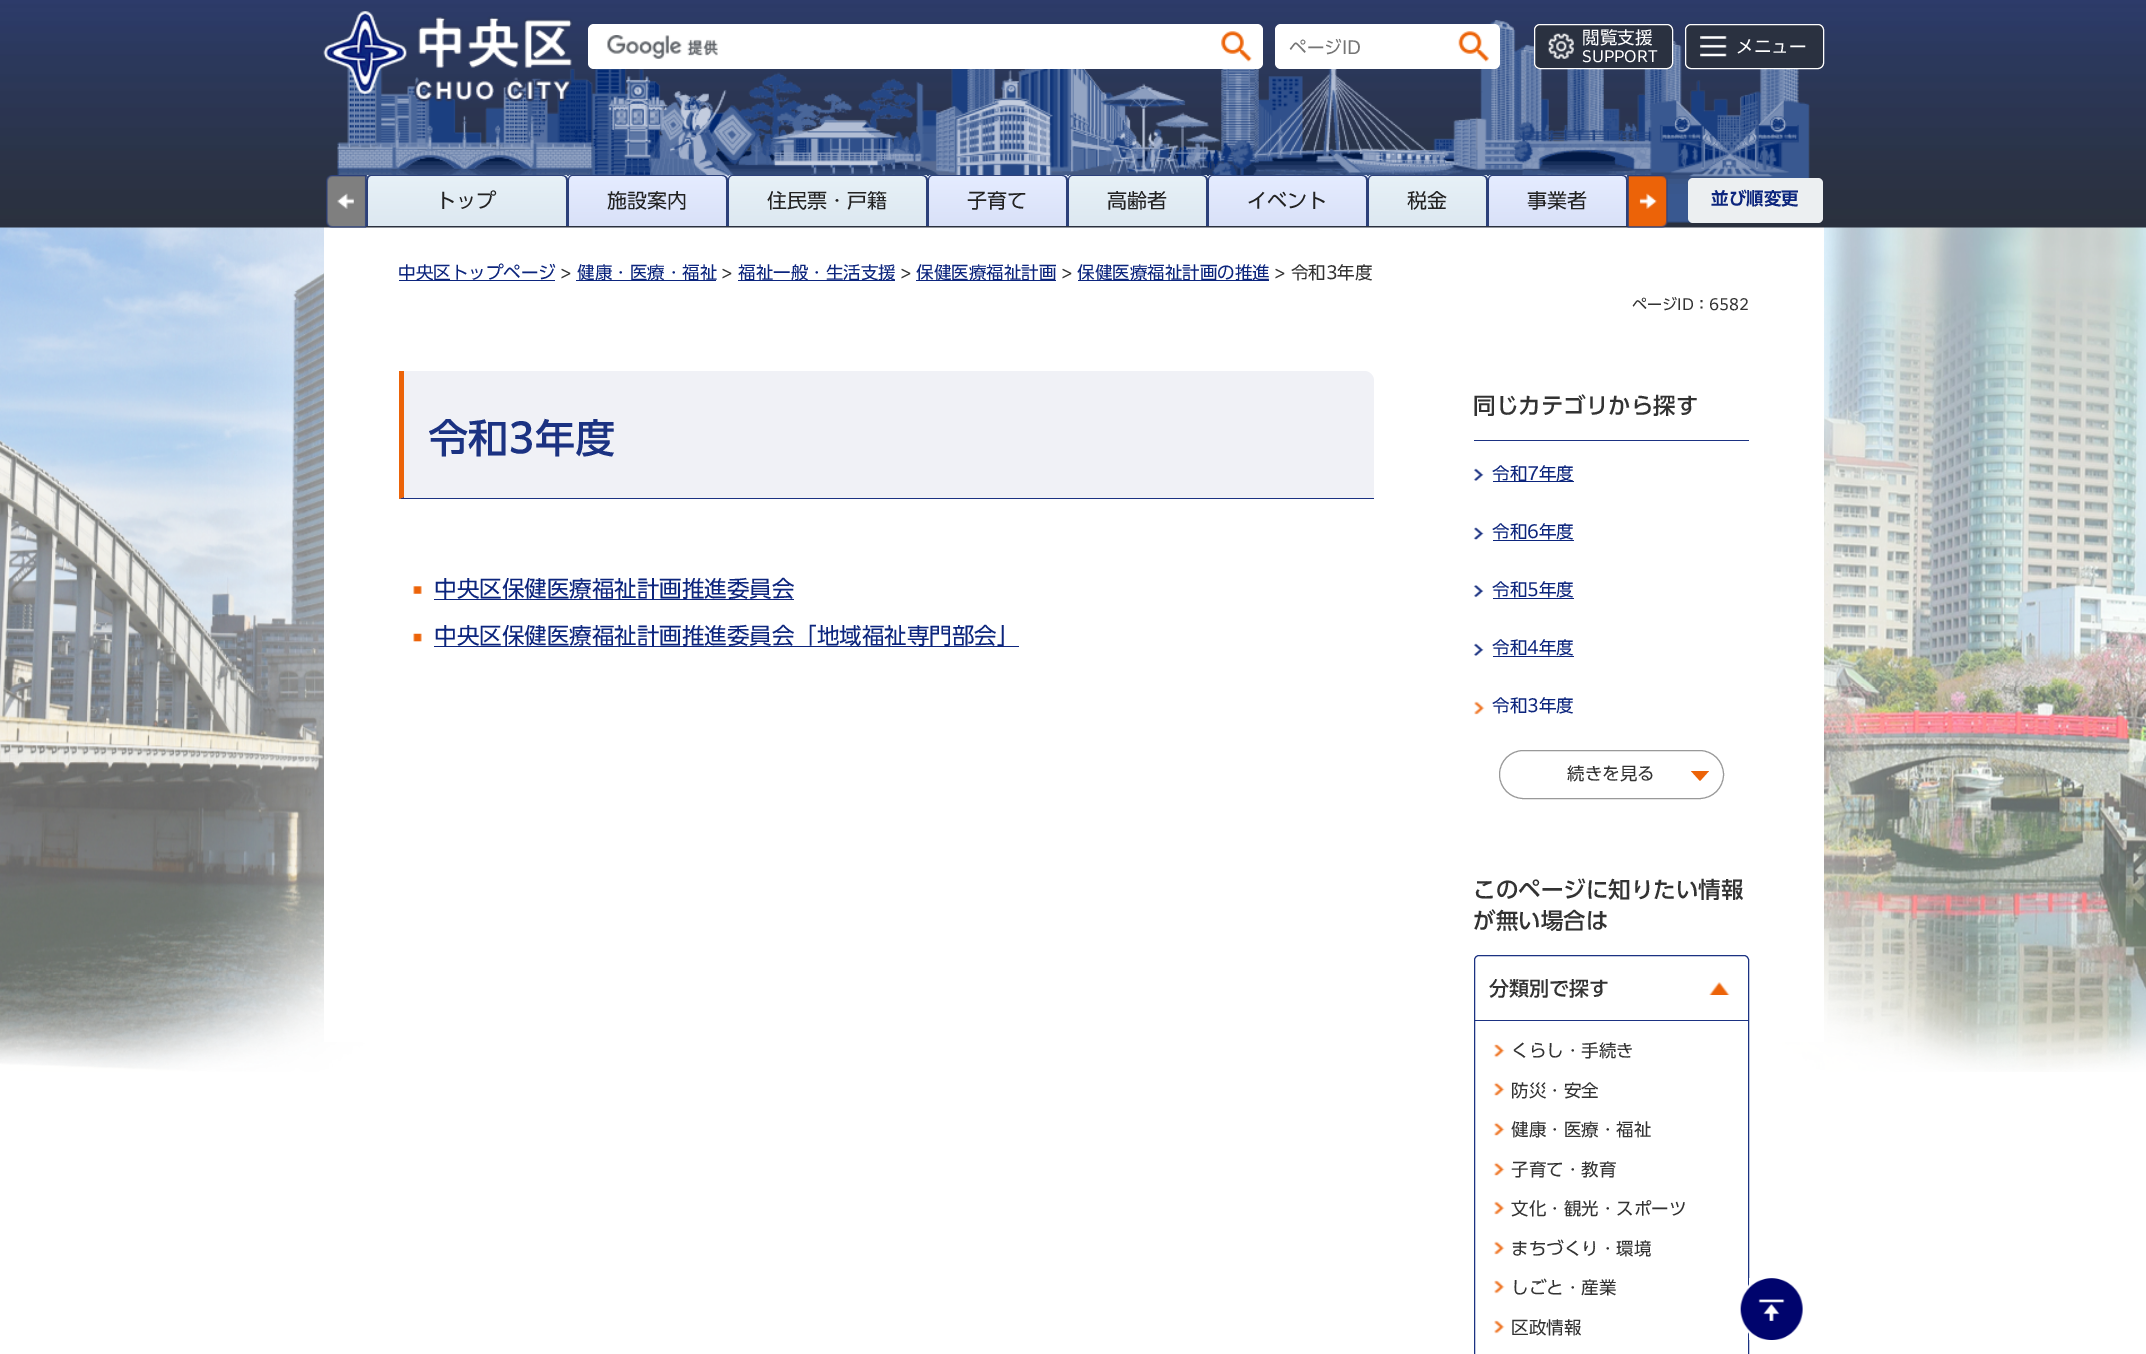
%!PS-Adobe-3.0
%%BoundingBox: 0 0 2146 1354
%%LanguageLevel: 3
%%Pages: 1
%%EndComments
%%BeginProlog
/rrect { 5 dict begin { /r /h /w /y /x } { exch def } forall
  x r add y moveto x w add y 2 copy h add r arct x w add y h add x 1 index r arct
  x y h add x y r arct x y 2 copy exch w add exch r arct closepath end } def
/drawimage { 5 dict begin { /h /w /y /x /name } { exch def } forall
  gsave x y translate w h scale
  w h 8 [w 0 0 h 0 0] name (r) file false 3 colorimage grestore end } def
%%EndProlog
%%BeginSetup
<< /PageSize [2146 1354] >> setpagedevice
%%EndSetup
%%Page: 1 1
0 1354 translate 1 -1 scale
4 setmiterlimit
1 setgray
0 0 2146 1354 rectfill
(images/11.raw) 0 227 2146 845 drawimage
324 227 1500 815 rectfill
(images/1.raw) 0 0 2146 228 drawimage
(images/3.raw) 337 20 1473 203 drawimage
(images/2.raw) 323 11 250 91 drawimage
588 24 675 45 6 rrect fill
(images/4.raw) 607 35 111 24 drawimage
(images/5.raw) 1221 31 31 31 drawimage
1275 24 225 45 6 rrect fill
(images/6.raw) 1458 31 31 31 drawimage
0.165 0.192 0.251 setrgbcolor
1534 24 139 45 6 rrect fill
(images/7.raw) 1548 33 26 26 drawimage
1 setgray
1534.5 24.5 138 44 5.5 rrect stroke
0.165 0.192 0.251 setrgbcolor
1685 24 139 45 6 rrect fill
(images/8.raw) 1700 36 27 21 drawimage
1 setgray
1685.5 24.5 138 44 5.5 rrect stroke
gsave
newpath 371 175 moveto 563 175 lineto 566 175 568 177 568 180 curveto 568 226 lineto 366 226 lineto 366 180 lineto 366 177 368 175 371 175 curveto closepath clip newpath
gsave newpath 366 175 moveto 568 175 lineto 568 176 lineto 366 176 lineto closepath clip newpath
<< /ShadingType 2 /ColorSpace /DeviceRGB /Coords [467 126 467 176] /Extend [true true] /Function << /FunctionType 2 /Domain [0 1] /C0 [0.906 0.945 0.969] /C1 [0.867 0.91 0.945] /N 1 >> >> shfill grestore
gsave newpath 366 176 moveto 568 176 lineto 568 226 lineto 366 226 lineto closepath clip newpath
<< /ShadingType 2 /ColorSpace /DeviceRGB /Coords [467 176 467 226] /Extend [true true] /Function << /FunctionType 2 /Domain [0 1] /C0 [0.906 0.945 0.969] /C1 [0.867 0.91 0.945] /N 1 >> >> shfill grestore
grestore
0.173 0.251 0.478 setrgbcolor
newpath 371 175 moveto 562 175 lineto 565 175 568 177 568 180 curveto 568 226 lineto 366 226 lineto 366 180 lineto 366 177 368 175 371 175 curveto closepath 371 176 moveto 562 176 lineto 565 176 566 178 566 180 curveto 566 226 lineto 368 226 lineto 368 180 lineto 368 178 369 176 371 176 curveto closepath eofill
(images/9.raw) 326 175 41 53 drawimage
gsave
newpath 573 175 moveto 723 175 lineto 726 175 728 177 728 180 curveto 728 226 lineto 568 226 lineto 568 180 lineto 568 177 570 175 573 175 curveto closepath clip newpath
gsave newpath 568 175 moveto 728 175 lineto 728 176 lineto 568 176 lineto closepath clip newpath
<< /ShadingType 2 /ColorSpace /DeviceRGB /Coords [648 126 648 176] /Extend [true true] /Function << /FunctionType 2 /Domain [0 1] /C0 [0.898 0.925 1] /C1 [0.851 0.882 0.973] /N 1 >> >> shfill grestore
gsave newpath 568 176 moveto 728 176 lineto 728 226 lineto 568 226 lineto closepath clip newpath
<< /ShadingType 2 /ColorSpace /DeviceRGB /Coords [648 176 648 226] /Extend [true true] /Function << /FunctionType 2 /Domain [0 1] /C0 [0.898 0.925 1] /C1 [0.851 0.882 0.973] /N 1 >> >> shfill grestore
grestore
newpath 572 175 moveto 722 175 lineto 725 175 728 177 728 180 curveto 728 226 lineto 568 226 lineto 568 180 lineto 568 177 570 175 572 175 curveto closepath 572 176 moveto 722 176 lineto 725 176 726 178 726 180 curveto 726 226 lineto 569 226 lineto 569 180 lineto 569 178 570 176 572 176 curveto closepath eofill
gsave
newpath 733 175 moveto 923 175 lineto 926 175 928 177 928 180 curveto 928 226 lineto 728 226 lineto 728 180 lineto 728 177 730 175 733 175 curveto closepath clip newpath
gsave newpath 728 175 moveto 928 175 lineto 928 176 lineto 728 176 lineto closepath clip newpath
<< /ShadingType 2 /ColorSpace /DeviceRGB /Coords [828 126 828 176] /Extend [true true] /Function << /FunctionType 2 /Domain [0 1] /C0 [0.906 0.945 0.969] /C1 [0.867 0.91 0.945] /N 1 >> >> shfill grestore
gsave newpath 728 176 moveto 928 176 lineto 928 226 lineto 728 226 lineto closepath clip newpath
<< /ShadingType 2 /ColorSpace /DeviceRGB /Coords [828 176 828 226] /Extend [true true] /Function << /FunctionType 2 /Domain [0 1] /C0 [0.906 0.945 0.969] /C1 [0.867 0.91 0.945] /N 1 >> >> shfill grestore
grestore
newpath 732 175 moveto 922 175 lineto 925 175 928 177 928 180 curveto 928 226 lineto 728 226 lineto 728 180 lineto 728 177 730 175 732 175 curveto closepath 732 176 moveto 922 176 lineto 925 176 926 178 926 180 curveto 926 226 lineto 729 226 lineto 729 180 lineto 729 178 730 176 732 176 curveto closepath eofill
gsave
newpath 933 175 moveto 1063 175 lineto 1066 175 1068 177 1068 180 curveto 1068 226 lineto 928 226 lineto 928 180 lineto 928 177 930 175 933 175 curveto closepath clip newpath
gsave newpath 928 175 moveto 1068 175 lineto 1068 176 lineto 928 176 lineto closepath clip newpath
<< /ShadingType 2 /ColorSpace /DeviceRGB /Coords [998 126 998 176] /Extend [true true] /Function << /FunctionType 2 /Domain [0 1] /C0 [0.898 0.925 1] /C1 [0.851 0.882 0.973] /N 1 >> >> shfill grestore
gsave newpath 928 176 moveto 1068 176 lineto 1068 226 lineto 928 226 lineto closepath clip newpath
<< /ShadingType 2 /ColorSpace /DeviceRGB /Coords [998 176 998 226] /Extend [true true] /Function << /FunctionType 2 /Domain [0 1] /C0 [0.898 0.925 1] /C1 [0.851 0.882 0.973] /N 1 >> >> shfill grestore
grestore
newpath 932 175 moveto 1062 175 lineto 1065 175 1068 177 1068 180 curveto 1068 226 lineto 928 226 lineto 928 180 lineto 928 177 930 175 932 175 curveto closepath 932 176 moveto 1062 176 lineto 1065 176 1066 178 1066 180 curveto 1066 226 lineto 929 226 lineto 929 180 lineto 929 178 930 176 932 176 curveto closepath eofill
gsave
newpath 1073 175 moveto 1203 175 lineto 1206 175 1208 177 1208 180 curveto 1208 226 lineto 1068 226 lineto 1068 180 lineto 1068 177 1070 175 1073 175 curveto closepath clip newpath
gsave newpath 1068 175 moveto 1208 175 lineto 1208 176 lineto 1068 176 lineto closepath clip newpath
<< /ShadingType 2 /ColorSpace /DeviceRGB /Coords [1138 126 1138 176] /Extend [true true] /Function << /FunctionType 2 /Domain [0 1] /C0 [0.906 0.945 0.969] /C1 [0.867 0.91 0.945] /N 1 >> >> shfill grestore
gsave newpath 1068 176 moveto 1208 176 lineto 1208 226 lineto 1068 226 lineto closepath clip newpath
<< /ShadingType 2 /ColorSpace /DeviceRGB /Coords [1138 176 1138 226] /Extend [true true] /Function << /FunctionType 2 /Domain [0 1] /C0 [0.906 0.945 0.969] /C1 [0.867 0.91 0.945] /N 1 >> >> shfill grestore
grestore
newpath 1072 175 moveto 1202 175 lineto 1205 175 1208 177 1208 180 curveto 1208 226 lineto 1068 226 lineto 1068 180 lineto 1068 177 1070 175 1072 175 curveto closepath 1072 176 moveto 1202 176 lineto 1205 176 1206 178 1206 180 curveto 1206 226 lineto 1069 226 lineto 1069 180 lineto 1069 178 1070 176 1072 176 curveto closepath eofill
gsave
newpath 1213 175 moveto 1363 175 lineto 1366 175 1368 177 1368 180 curveto 1368 226 lineto 1208 226 lineto 1208 180 lineto 1208 177 1210 175 1213 175 curveto closepath clip newpath
gsave newpath 1208 175 moveto 1368 175 lineto 1368 176 lineto 1208 176 lineto closepath clip newpath
<< /ShadingType 2 /ColorSpace /DeviceRGB /Coords [1288 126 1288 176] /Extend [true true] /Function << /FunctionType 2 /Domain [0 1] /C0 [0.898 0.925 1] /C1 [0.851 0.882 0.973] /N 1 >> >> shfill grestore
gsave newpath 1208 176 moveto 1368 176 lineto 1368 226 lineto 1208 226 lineto closepath clip newpath
<< /ShadingType 2 /ColorSpace /DeviceRGB /Coords [1288 176 1288 226] /Extend [true true] /Function << /FunctionType 2 /Domain [0 1] /C0 [0.898 0.925 1] /C1 [0.851 0.882 0.973] /N 1 >> >> shfill grestore
grestore
newpath 1212 175 moveto 1362 175 lineto 1365 175 1368 177 1368 180 curveto 1368 226 lineto 1208 226 lineto 1208 180 lineto 1208 177 1210 175 1212 175 curveto closepath 1212 176 moveto 1362 176 lineto 1365 176 1366 178 1366 180 curveto 1366 226 lineto 1209 226 lineto 1209 180 lineto 1209 178 1210 176 1212 176 curveto closepath eofill
gsave
newpath 1373 175 moveto 1483 175 lineto 1486 175 1488 177 1488 180 curveto 1488 226 lineto 1368 226 lineto 1368 180 lineto 1368 177 1370 175 1373 175 curveto closepath clip newpath
gsave newpath 1368 175 moveto 1488 175 lineto 1488 176 lineto 1368 176 lineto closepath clip newpath
<< /ShadingType 2 /ColorSpace /DeviceRGB /Coords [1428 126 1428 176] /Extend [true true] /Function << /FunctionType 2 /Domain [0 1] /C0 [0.906 0.945 0.969] /C1 [0.867 0.91 0.945] /N 1 >> >> shfill grestore
gsave newpath 1368 176 moveto 1488 176 lineto 1488 226 lineto 1368 226 lineto closepath clip newpath
<< /ShadingType 2 /ColorSpace /DeviceRGB /Coords [1428 176 1428 226] /Extend [true true] /Function << /FunctionType 2 /Domain [0 1] /C0 [0.906 0.945 0.969] /C1 [0.867 0.91 0.945] /N 1 >> >> shfill grestore
grestore
newpath 1372 175 moveto 1482 175 lineto 1485 175 1488 177 1488 180 curveto 1488 226 lineto 1368 226 lineto 1368 180 lineto 1368 177 1370 175 1372 175 curveto closepath 1372 176 moveto 1482 176 lineto 1485 176 1486 178 1486 180 curveto 1486 226 lineto 1369 226 lineto 1369 180 lineto 1369 178 1370 176 1372 176 curveto closepath eofill
gsave
newpath 1493 175 moveto 1623 175 lineto 1626 175 1628 177 1628 180 curveto 1628 226 lineto 1488 226 lineto 1488 180 lineto 1488 177 1490 175 1493 175 curveto closepath clip newpath
gsave newpath 1488 175 moveto 1628 175 lineto 1628 176 lineto 1488 176 lineto closepath clip newpath
<< /ShadingType 2 /ColorSpace /DeviceRGB /Coords [1558 126 1558 176] /Extend [true true] /Function << /FunctionType 2 /Domain [0 1] /C0 [0.898 0.925 1] /C1 [0.851 0.882 0.973] /N 1 >> >> shfill grestore
gsave newpath 1488 176 moveto 1628 176 lineto 1628 226 lineto 1488 226 lineto closepath clip newpath
<< /ShadingType 2 /ColorSpace /DeviceRGB /Coords [1558 176 1558 226] /Extend [true true] /Function << /FunctionType 2 /Domain [0 1] /C0 [0.898 0.925 1] /C1 [0.851 0.882 0.973] /N 1 >> >> shfill grestore
grestore
newpath 1492 175 moveto 1622 175 lineto 1625 175 1628 177 1628 180 curveto 1628 226 lineto 1488 226 lineto 1488 180 lineto 1488 177 1490 175 1492 175 curveto closepath 1492 176 moveto 1622 176 lineto 1625 176 1626 178 1626 180 curveto 1626 226 lineto 1489 226 lineto 1489 180 lineto 1489 178 1490 176 1492 176 curveto closepath eofill
(images/10.raw) 1627 175 41 53 drawimage
0.925 0.937 0.945 setrgbcolor
1688 178 135 45 5 rrect fill
0.047 0.145 0.49 setrgbcolor
399 280 156 1 rectfill
576 280 140 1 rectfill
738 280 157 1 rectfill
916 280 140 1 rectfill
1078 280 191 1 rectfill
0.941 0.945 0.965 setrgbcolor
newpath 399 371 moveto 1364 371 lineto 1369.5 371 1374 375.5 1374 381 curveto 1374 499 lineto 399 499 lineto closepath fill
0.106 0.196 0.51 setrgbcolor
newpath 1374 499 moveto 399 499 lineto 404 497 lineto 404 498 lineto 1374 498 lineto closepath fill
0.925 0.388 0.031 setrgbcolor
newpath 399 499 moveto 399 371 lineto 404 371 lineto 404 497 lineto closepath fill
(images/12.raw) 413 586 9 8 drawimage
0.047 0.145 0.49 setrgbcolor
434 599 360 1 rectfill
(images/13.raw) 413 633 9 9 drawimage
434 646 585 1 rectfill
0.106 0.196 0.51 setrgbcolor
1474 440 275 1 rectfill
(images/14.raw) 1473 468 11 13 drawimage
0.047 0.145 0.49 setrgbcolor
1493 481 81 1 rectfill
(images/15.raw) 1473 527 11 13 drawimage
1493 540 81 1 rectfill
(images/16.raw) 1473 585 11 13 drawimage
1493 598 81 1 rectfill
(images/14.raw) 1473 643 11 13 drawimage
1493 656 81 1 rectfill
(images/17.raw) 1474 701 11 14 drawimage
0.6 setgray
1499.5 750.5 224 48 24 rrect stroke
0.925 0.388 0.031 setrgbcolor
newpath 1691 771 moveto 1709 771 lineto 1700 781 lineto closepath fill
0.106 0.196 0.51 setrgbcolor
1474.5 955.5 274 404 4.5 rrect stroke
(images/18.raw) 1709 982 21 13 drawimage
1475 1020 273 1 rectfill
(images/19.raw) 1493 1044 12 14 drawimage
(images/20.raw) 1493 1082 12 14 drawimage
(images/20.raw) 1493 1122 12 14 drawimage
(images/20.raw) 1493 1162 12 14 drawimage
(images/17.raw) 1494 1201 11 14 drawimage
(images/21.raw) 1494 1241 11 14 drawimage
(images/22.raw) 1494 1280 11 14 drawimage
(images/22.raw) 1494 1320 11 14 drawimage
(images/23.raw) 1740 1278 63 62 drawimage
/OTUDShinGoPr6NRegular-Regular [17.5 0 0 -17.5 0 0] selectfont
0.459 setgray
1289 54 moveto (ページID) show
1 setgray
1582 44 moveto (閲覧支援) show
/OTUDShinGoPr6NRegular-Regular [15 0 0 -15 0 0] selectfont
1582 62 moveto (SUPPORT) show
/OTUDShinGoPr6NRegular-Regular [17.5 0 0 -17.5 0 0] selectfont
1736 53 moveto (メニュー) show
/OTUDShinGoPr6NRegular-Regular [20 0 0 -20 0 0] selectfont
0.133 setgray
436 208 moveto (トップ) show
607 208 moveto (施設案内) show
767 208 moveto (住民票・戸籍) show
967 208 moveto (子育て) show
1107 208 moveto (高齢者) show
1247 208 moveto (イベント) show
1407 208 moveto (税金) show
1527 208 moveto (事業者) show
/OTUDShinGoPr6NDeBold-SemiBold [17.5 0 0 -17.5 0 0] selectfont
0.047 0.145 0.49 setrgbcolor
1711 205 moveto (並び順変更) show
/OTUDShinGoPr6NRegular-Regular [17.5 0 0 -17.5 0 0] selectfont
398 279 moveto (中央区トップページ) show
0.2 setgray
560 279 moveto (>) show
0.047 0.145 0.49 setrgbcolor
577 279 moveto (健康・医療・福祉) show
0.2 setgray
721 279 moveto (>) show
0.047 0.145 0.49 setrgbcolor
738 279 moveto (福祉一般・生活支援) show
0.2 setgray
900 279 moveto (>) show
0.047 0.145 0.49 setrgbcolor
916 279 moveto (保健医療福祉計画) show
0.2 setgray
1061 279 moveto (>) show
0.047 0.145 0.49 setrgbcolor
1077 279 moveto (保健医療福祉計画の推進) show
0.2 setgray
1274 279 moveto (> 令和3年度) show
/OTUDShinGoPr6NRegular-Regular [15 0 0 -15 0 0] selectfont
1632 310 moveto (ページID：6582) show
/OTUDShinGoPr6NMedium-Medium [40 0 0 -40 0 0] selectfont
0.106 0.196 0.51 setrgbcolor
428 453 moveto (令和3年度) show
/OTUDShinGoPr6NRegular-Regular [22.5 0 0 -22.5 0 0] selectfont
0.047 0.145 0.49 setrgbcolor
434 597 moveto (中央区保健医療福祉計画推進委員会) show
434 644 moveto (中央区保健医療福祉計画推進委員会「地域福祉専門部会」) show
/OTUDShinGoPr6NMedium-Medium [22.5 0 0 -22.5 0 0] selectfont
0.2 setgray
1473 414 moveto (同じカテゴリから探す) show
/OTUDShinGoPr6NRegular-Regular [17.5 0 0 -17.5 0 0] selectfont
0.047 0.145 0.49 setrgbcolor
1492 480 moveto (令和7年度) show
1492 538 moveto (令和6年度) show
1492 596 moveto (令和5年度) show
1492 654 moveto (令和4年度) show
1492 712 moveto (令和3年度) show
0.2 setgray
1567 780 moveto (続きを見る) show
/OTUDShinGoPr6NMedium-Medium [22.5 0 0 -22.5 0 0] selectfont
1473 898 moveto (このページに知りたい情報) show
1473 929 moveto (が無い場合は) show
/OTUDShinGoPr6NMedium-Medium [20 0 0 -20 0 0] selectfont
1489 996 moveto (分類別で探す) show
/OTUDShinGoPr6NRegular-Regular [17.5 0 0 -17.5 0 0] selectfont
1511 1057 moveto (くらし・手続き) show
1511 1097 moveto (防災・安全) show
1511 1136 moveto (健康・医療・福祉) show
1511 1176 moveto (子育て・教育) show
1511 1215 moveto (文化・観光・スポーツ) show
1511 1255 moveto (まちづくり・環境) show
1511 1294 moveto (しごと・産業) show
1511 1334 moveto (区政情報) show
showpage
%%EOF
